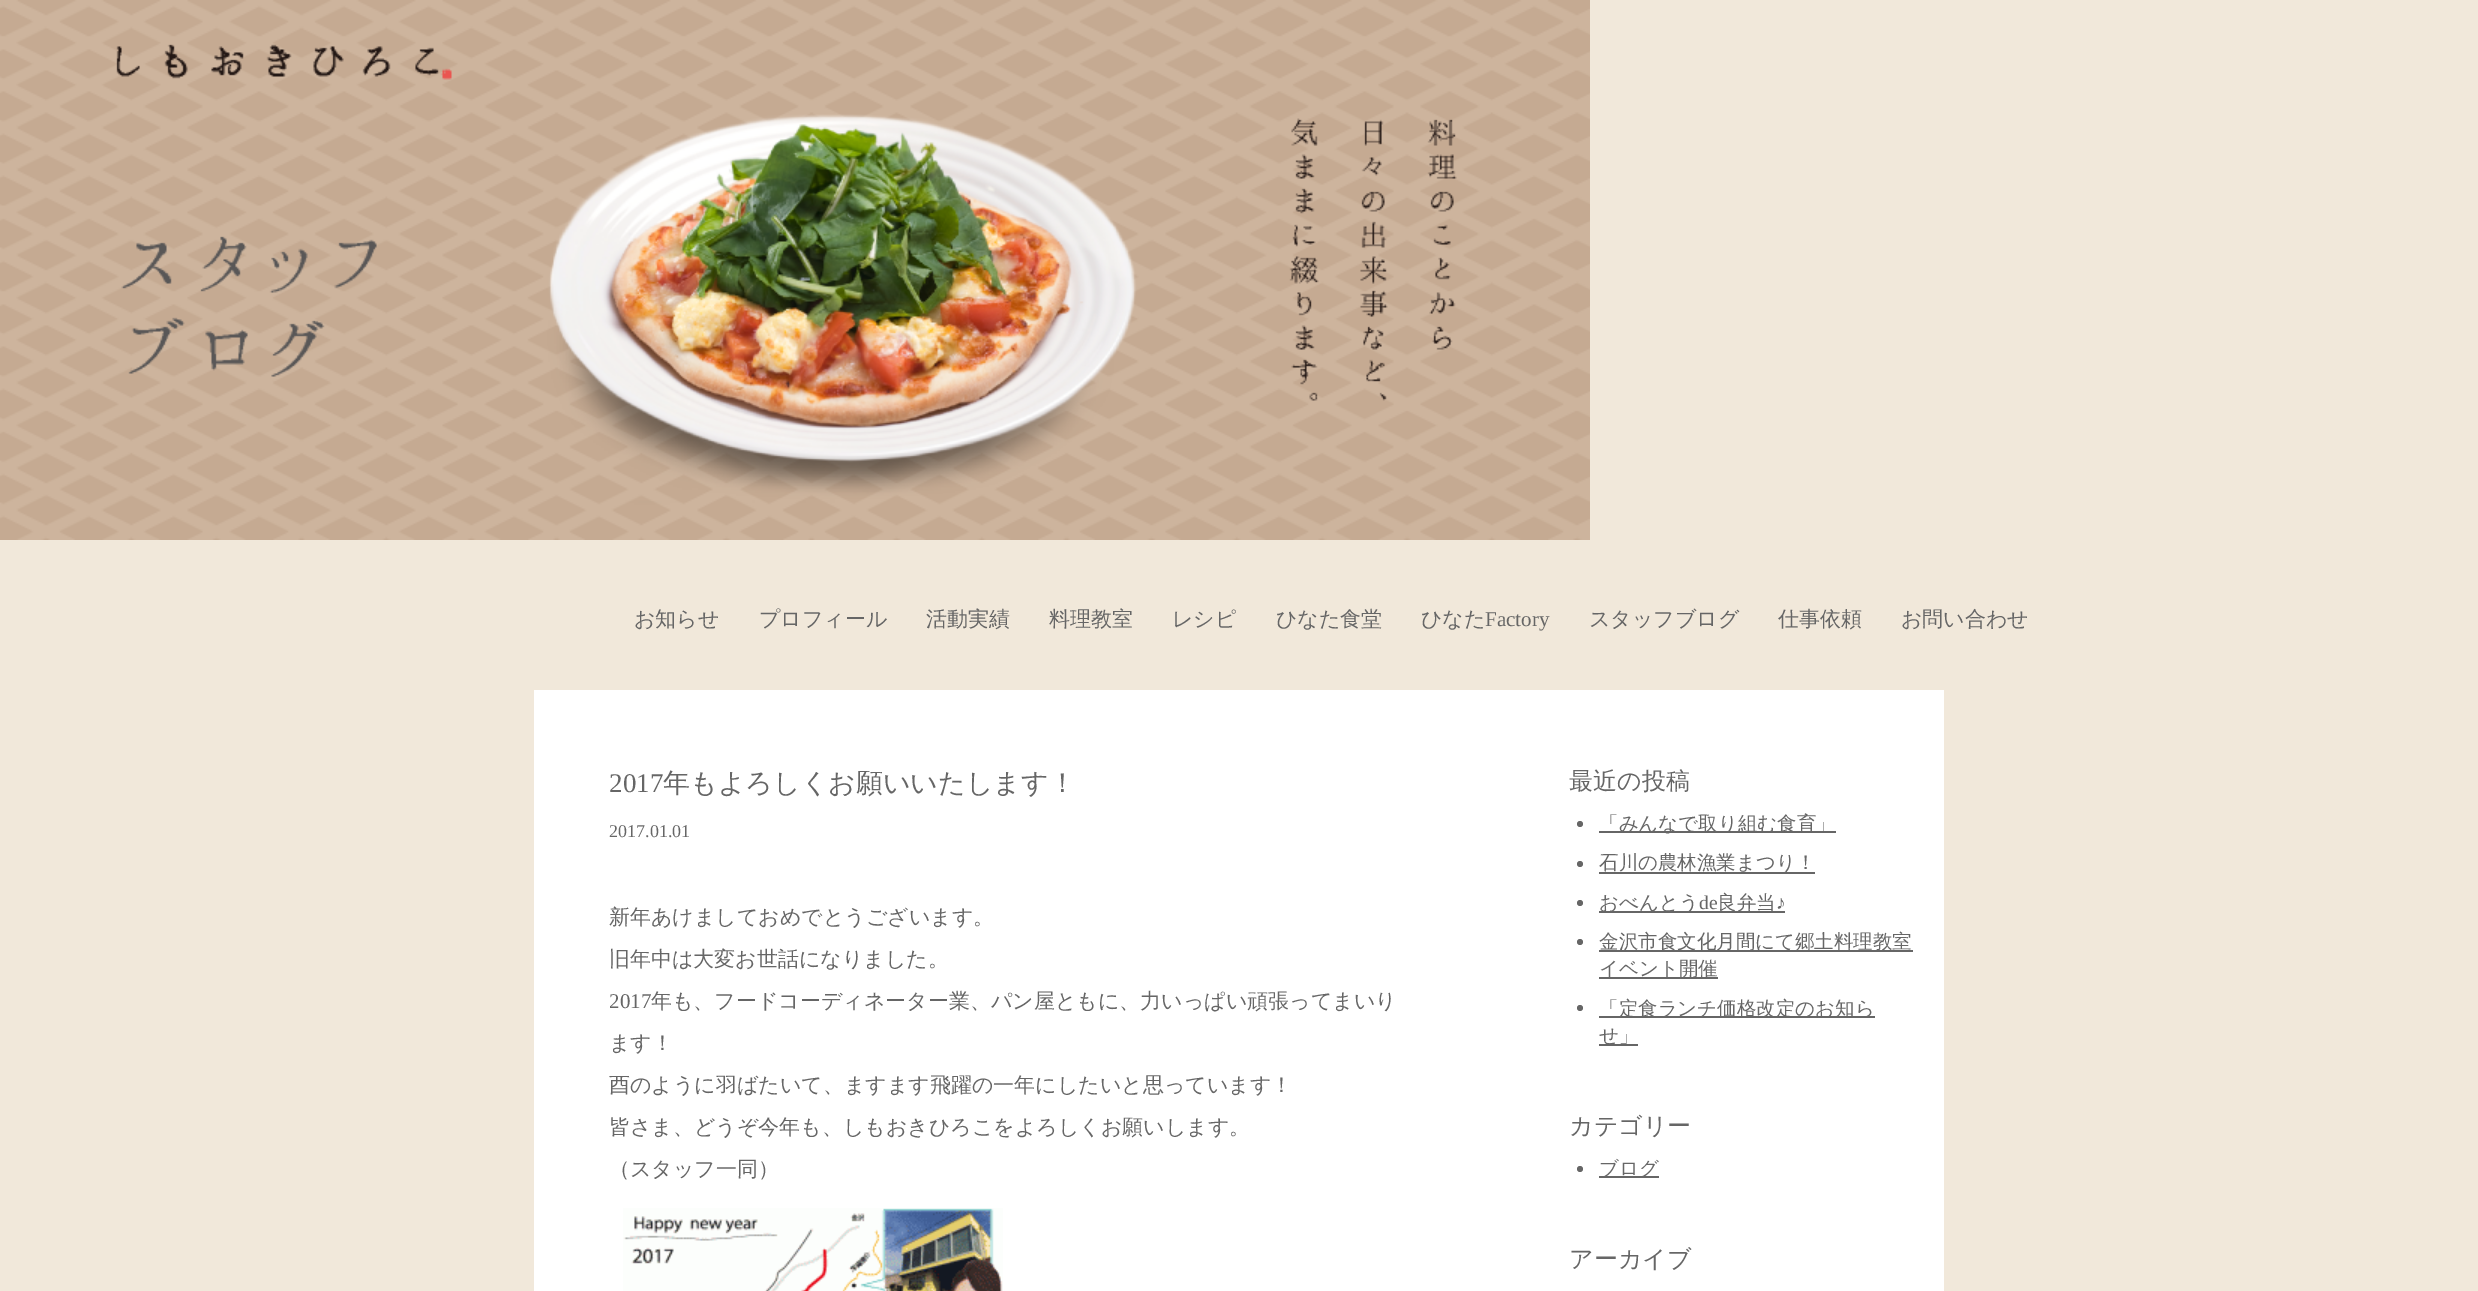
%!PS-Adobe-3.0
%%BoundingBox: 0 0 2478 1291
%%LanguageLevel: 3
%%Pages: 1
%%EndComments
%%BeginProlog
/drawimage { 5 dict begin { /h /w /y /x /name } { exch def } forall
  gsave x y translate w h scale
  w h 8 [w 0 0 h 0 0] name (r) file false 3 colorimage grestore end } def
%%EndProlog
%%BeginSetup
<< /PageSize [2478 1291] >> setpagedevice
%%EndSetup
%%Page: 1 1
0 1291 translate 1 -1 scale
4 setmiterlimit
0.945 0.91 0.855 setrgbcolor
0 0 2478 1291 rectfill
(images/1.raw) 0 0 1590 540 drawimage
1 setgray
534 690 1410 601 rectfill
(images/2.raw) 623 1208 380 83 drawimage
0.4 setgray
newpath 1580 824 3 0 360 arc closepath fill
1599 831 237 2 rectfill
newpath 1580 864 3 0 360 arc closepath fill
1599 872 216 2 rectfill
newpath 1580 903 3 0 360 arc closepath fill
1599 911 186 2 rectfill
newpath 1580 942 3 0 360 arc closepath fill
1599 950 314 2 rectfill
1599 977 119 2 rectfill
newpath 1580 1008 3 0 360 arc closepath fill
1599 1016 276 2 rectfill
1599 1044 39 2 rectfill
newpath 1580 1169 3 0 360 arc closepath fill
1599 1176 60 2 rectfill
/WenQuanYiZenHei-Medium [21 0 0 -21 0 0] selectfont
634 626 moveto (お知らせ) show
759 626 moveto (プロフィール) show
926 626 moveto (活動実績) show
1049 626 moveto (料理教室) show
1172 626 moveto (レシピ) show
1276 626 moveto (ひなた食堂) show
1421 626 moveto (ひなた) show
/LiberationSerif-Regular [21 0 0 -21 0 0] selectfont
1485 626 moveto (Factory) show
/WenQuanYiZenHei-Medium [21 0 0 -21 0 0] selectfont
1589 626 moveto (スタッフブログ) show
1778 626 moveto (仕事依頼) show
1901 626 moveto (お問い合わせ) show
/LiberationSerif-Regular [27 0 0 -27 0 0] selectfont
609 792 moveto (2017) show
/WenQuanYiZenHei-Medium [27 0 0 -27 0 0] selectfont
663 792 moveto (年もよろしくお願いいたします！) show
/LiberationSerif-Regular [18 0 0 -18 0 0] selectfont
609 837 moveto (2017.01.01) show
/WenQuanYiZenHei-Medium [21 0 0 -21 0 0] selectfont
609 924 moveto (新年あけましておめでとうございます。) show
609 966 moveto (旧年中は大変お世話になりました。) show
/LiberationSerif-Regular [21 0 0 -21 0 0] selectfont
609 1008 moveto (2017) show
/WenQuanYiZenHei-Medium [21 0 0 -21 0 0] selectfont
651 1008 moveto (年も、フードコーディネーター業、パン屋ともに、力いっぱい頑張ってまいり) show
609 1050 moveto (ます！) show
609 1092 moveto (酉のように羽ばたいて、ますます飛躍の一年にしたいと思っています！) show
609 1134 moveto (皆さま、どうぞ今年も、しもおきひろこをよろしくお願いします。) show
609 1176 moveto (（スタッフ一同）) show
/WenQuanYiZenHei-Medium [24 0 0 -24 0 0] selectfont
1569 789 moveto (最近の投稿) show
/WenQuanYiZenHei-Medium [19.5 0 0 -19.5 0 0] selectfont
1599 830 moveto (「みんなで取り組む食育」) show
1599 869 moveto (石川の農林漁業まつり！) show
1599 909 moveto (おべんとう) show
/LiberationSerif-Regular [19.5 0 0 -19.5 0 0] selectfont
1699 909 moveto (de) show
/WenQuanYiZenHei-Medium [19.5 0 0 -19.5 0 0] selectfont
1717 909 moveto (良弁当) show
/LiberationSerif-Regular [19.5 0 0 -19.5 0 0] selectfont
1776 909 moveto (♪) show
/WenQuanYiZenHei-Medium [19.5 0 0 -19.5 0 0] selectfont
1599 948 moveto (金沢市食文化月間にて郷土料理教室) show
1599 975 moveto (イベント開催) show
1599 1015 moveto (「定食ランチ価格改定のお知ら) show
1599 1042 moveto (せ」) show
/WenQuanYiZenHei-Medium [24 0 0 -24 0 0] selectfont
1569 1134 moveto (カテゴリー) show
/WenQuanYiZenHei-Medium [19.5 0 0 -19.5 0 0] selectfont
1599 1175 moveto (ブログ) show
/WenQuanYiZenHei-Medium [24 0 0 -24 0 0] selectfont
1569 1267 moveto (アーカイブ) show
showpage
%%EOF
